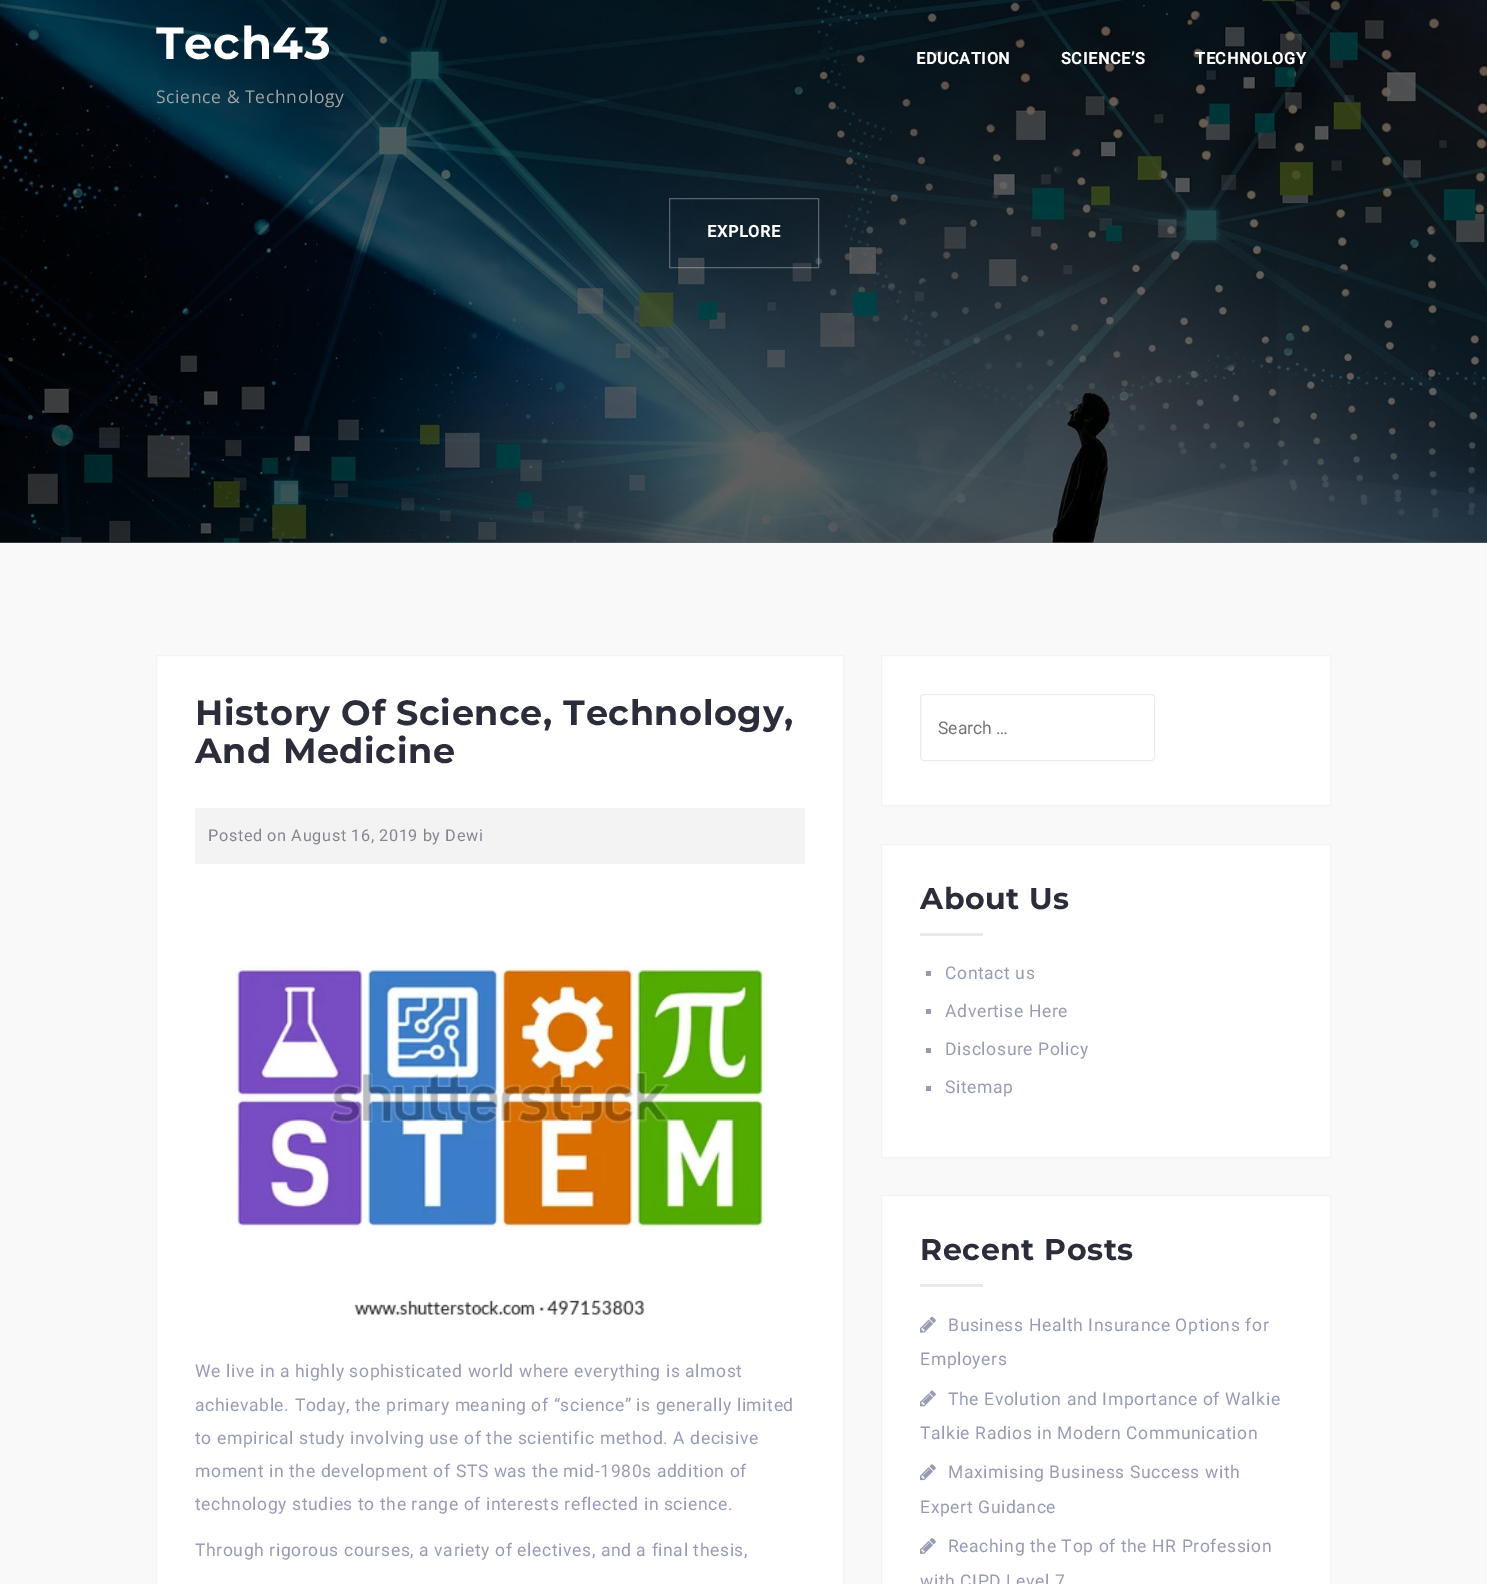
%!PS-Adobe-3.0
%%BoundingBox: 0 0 1487 1584
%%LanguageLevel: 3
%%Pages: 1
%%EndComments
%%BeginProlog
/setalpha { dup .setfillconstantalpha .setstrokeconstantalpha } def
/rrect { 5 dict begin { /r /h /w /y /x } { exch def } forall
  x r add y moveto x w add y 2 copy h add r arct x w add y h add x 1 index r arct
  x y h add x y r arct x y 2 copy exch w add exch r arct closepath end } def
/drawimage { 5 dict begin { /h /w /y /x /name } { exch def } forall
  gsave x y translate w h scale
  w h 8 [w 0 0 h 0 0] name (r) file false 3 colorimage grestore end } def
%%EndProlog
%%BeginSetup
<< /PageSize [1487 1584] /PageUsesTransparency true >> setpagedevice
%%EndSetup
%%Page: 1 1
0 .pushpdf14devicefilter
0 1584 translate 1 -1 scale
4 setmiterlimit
0.976 setgray
0 0 1487 1584 rectfill
0.392 setgray
0 542 1487 1 rectfill
(images/1.raw) 0 0 1487 543 drawimage
0.3 setalpha
1 setgray
669.5 198.5 149 69 rectstroke
1 setalpha
newpath 156.5 655.5 moveto 843.5 655.5 lineto 843.5 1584.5 lineto 156.5 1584.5 lineto closepath gsave fill grestore
0.953 setgray
stroke
195 808 610 56 rectfill
(images/2.raw) 237 966 533 352 drawimage
1 setgray
newpath 881.5 655.5 moveto 1330.5 655.5 lineto 1330.5 805.5 lineto 881.5 805.5 lineto closepath gsave fill grestore
0.953 setgray
stroke
0.922 setgray
920.5 694.5 234 66 3.5 rrect stroke
1 setgray
newpath 881.5 844.5 moveto 1330.5 844.5 lineto 1330.5 1157.5 lineto 881.5 1157.5 lineto closepath gsave fill grestore
0.953 setgray
stroke
0.91 0.914 0.918 setrgbcolor
920 933 63 3 rectfill
0.588 0.612 0.702 setrgbcolor
926 971 5 5 rectfill
926 1009 5 5 rectfill
926 1048 5 5 rectfill
926 1086 5 5 rectfill
1 setgray
newpath 881.5 1195.5 moveto 1330.5 1195.5 lineto 1330.5 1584.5 lineto 881.5 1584.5 lineto closepath gsave fill grestore
0.953 setgray
stroke
0.91 0.914 0.918 setrgbcolor
920 1284 63 3 rectfill
(images/3.raw) 920 1316 16 17 drawimage
(images/4.raw) 920 1390 16 17 drawimage
(images/5.raw) 920 1464 16 17 drawimage
(images/6.raw) 920 1538 16 16 drawimage
/Montserrat-Bold [45 0 0 -45 0 0] selectfont
1 setgray
156 59 moveto 0.62 0 (Tech43) ashow
/OpenSans-Regular [17.5 0 0 -17.5 0 0] selectfont
0.635 setgray
156 103 moveto 0.62 0 (Science & Technology) ashow
/Roboto-Bold [16.25 0 0 -16.25 0 0] selectfont
1 setgray
916 64 moveto 0.62 0 (EDUCATION) ashow
1061 64 moveto 0.62 0 (SCIENCE’S) ashow
1195 64 moveto 0.62 0 (TECHNOLOGY) ashow
707 237 moveto 0.62 0 (EXPLORE) ashow
/Montserrat-Bold [35 0 0 -35 0 0] selectfont
0.169 0.176 0.227 setrgbcolor
195 725 moveto 0.62 0 (History Of Science, Technology,) ashow
195 763 moveto 0.62 0 (And Medicine) ashow
/Roboto-Regular [16.25 0 0 -16.25 0 0] selectfont
0.514 0.522 0.573 setrgbcolor
208 841 moveto 0.62 0 (Posted on August 16, 2019 by Dewi) ashow
/Roboto-Regular [17.5 0 0 -17.5 0 0] selectfont
0.588 0.612 0.702 setrgbcolor
195 1377 moveto 0.62 0 (We live in a highly sophisticated world where everything is almost) ashow
195 1411 moveto 0.62 0 (achievable. Today, the primary meaning of “science” is generally limited) ashow
195 1444 moveto 0.62 0 (to empirical study involving use of the scientific method. A decisive) ashow
195 1477 moveto 0.62 0 (moment in the development of STS was the mid-1980s addition of) ashow
195 1510 moveto 0.62 0 (technology studies to the range of interests reflected in science.) ashow
195 1556 moveto 0.62 0 (Through rigorous courses, a variety of electives, and a final thesis,) ashow
0.459 setgray
938 734 moveto (Search …) show
/Montserrat-Bold [30 0 0 -30 0 0] selectfont
0.169 0.176 0.227 setrgbcolor
920 909 moveto 0.62 0 (About Us) ashow
/Roboto-Regular [17.5 0 0 -17.5 0 0] selectfont
0.588 0.612 0.702 setrgbcolor
945 979 moveto 0.62 0 (Contact us) ashow
945 1017 moveto 0.62 0 (Advertise Here) ashow
945 1055 moveto 0.62 0 (Disclosure Policy) ashow
945 1093 moveto 0.62 0 (Sitemap) ashow
/Montserrat-Bold [30 0 0 -30 0 0] selectfont
0.169 0.176 0.227 setrgbcolor
920 1260 moveto 0.62 0 (Recent Posts) ashow
/Roboto-Regular [17.5 0 0 -17.5 0 0] selectfont
0.588 0.612 0.702 setrgbcolor
948 1331 moveto 0.62 0 (Business Health Insurance Options for) ashow
920 1365 moveto 0.62 0 (Employers) ashow
948 1405 moveto 0.62 0 (The Evolution and Importance of Walkie) ashow
920 1439 moveto 0.62 0 (Talkie Radios in Modern Communication) ashow
948 1478 moveto 0.62 0 (Maximising Business Success with) ashow
920 1513 moveto 0.62 0 (Expert Guidance) ashow
948 1552 moveto 0.62 0 (Reaching the Top of the HR Profession) ashow
920 1587 moveto 0.62 0 (with CIPD Level 7) ashow
.poppdf14devicefilter showpage
%%EOF
